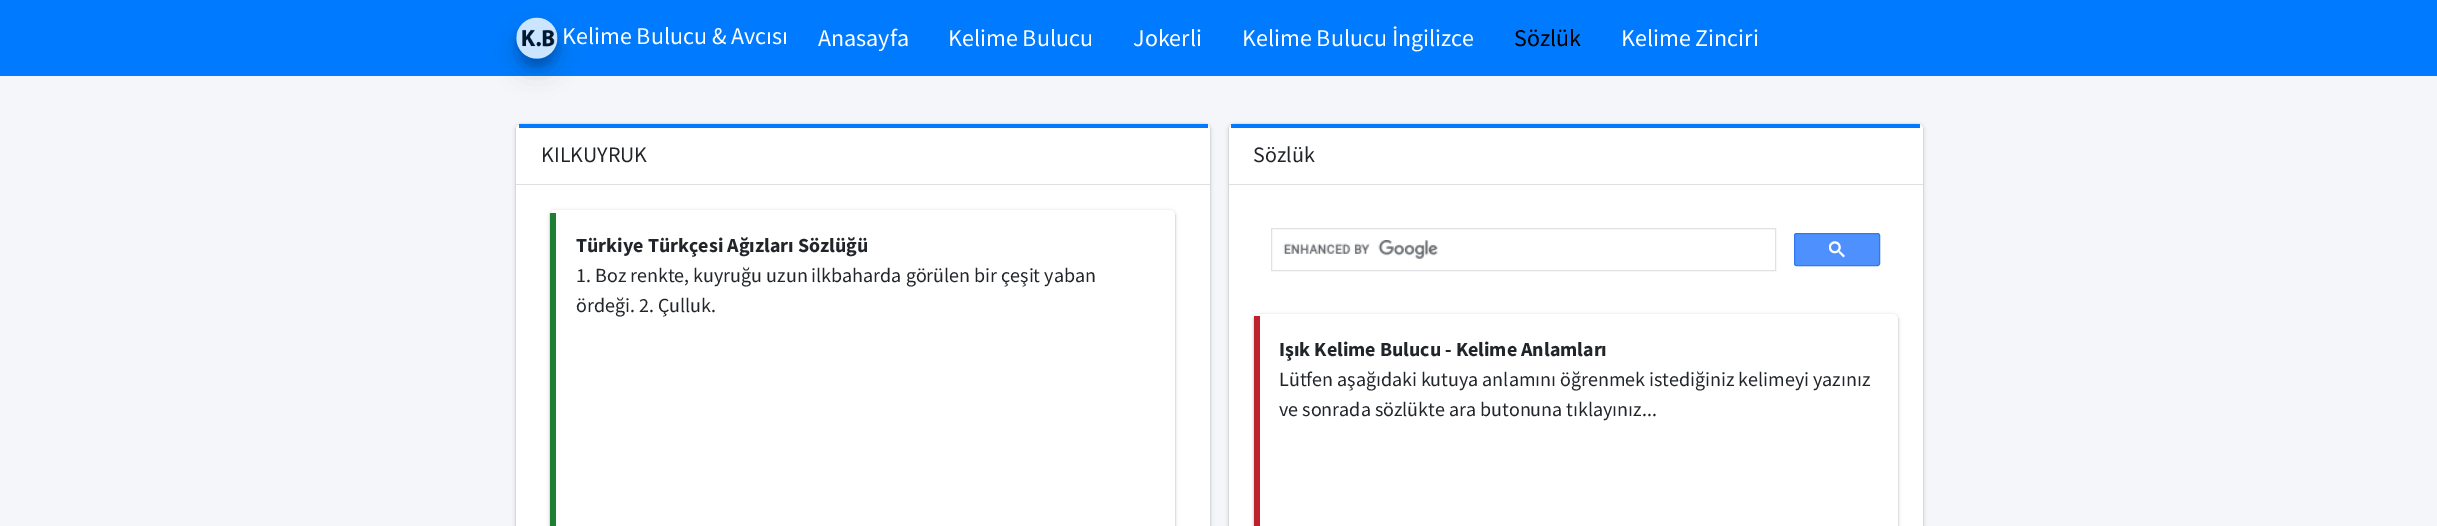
%!PS-Adobe-3.0
%%BoundingBox: 0 0 2437 526
%%LanguageLevel: 3
%%Pages: 1
%%EndComments
%%BeginProlog
/setalpha { dup .setfillconstantalpha .setstrokeconstantalpha } def
/rrect { 5 dict begin { /r /h /w /y /x } { exch def } forall
  x r add y moveto x w add y 2 copy h add r arct x w add y h add x 1 index r arct
  x y h add x y r arct x y 2 copy exch w add exch r arct closepath end } def
/softshadow { 12 dict begin { /a /b /q /h /w /y /x } { exch def } forall gsave /was 0 def
  9 -2 -9 { dup b mul 4 div /e exch def 1 sub .425 mul 2.718 exch exp 1 add a .99 .min exch div /now exch def
    1 1 now sub 1 was sub div sub setalpha /was now def
    w h .min e 2 mul add 0 gt { x e sub y e sub w e 2 mul add h e 2 mul add
      q e add b .6 mul add w h .min 2 div e add .min 0 .max rrect fill } if } for grestore end } def
/drawimage { 5 dict begin { /h /w /y /x /name } { exch def } forall
  gsave x y translate w h scale
  w h 8 [w 0 0 h 0 0] name (r) file false 3 colorimage grestore end } def
%%EndProlog
%%BeginSetup
<< /PageSize [2437 526] /PageUsesTransparency true >> setpagedevice
%%EndSetup
%%Page: 1 1
0 .pushpdf14devicefilter
0 526 translate 1 -1 scale
4 setmiterlimit
0.957 0.965 0.976 setrgbcolor
0 0 2437 526 rectfill
0 0.482 1 setrgbcolor
0 0 2437 76 rectfill
gsave
newpath 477 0 moveto 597 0 lineto 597 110 lineto 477 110 lineto closepath 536.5 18 moveto 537.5 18 lineto 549 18 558 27 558 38.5 curveto 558 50 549 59 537.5 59 curveto 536.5 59 lineto 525 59 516 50 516 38.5 curveto 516 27 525 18 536.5 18 curveto closepath eoclip newpath
0 setgray
516 30 42 41 20.5 12.5 0.15 softshadow
grestore
gsave
newpath 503 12 moveto 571 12 lineto 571 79 lineto 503 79 lineto closepath 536.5 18 moveto 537.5 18 lineto 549 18 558 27 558 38.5 curveto 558 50 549 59 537.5 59 curveto 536.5 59 lineto 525 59 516 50 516 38.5 curveto 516 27 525 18 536.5 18 curveto closepath eoclip newpath
0 setgray
516 25 42 41 20.5 4 0.18 softshadow
grestore
(images/1.raw) 516 17 42 42 drawimage
0 setgray
516 125 694 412 5 2 0.2 softshadow
516 124 694 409 5 0.5 0.12 softshadow
1 setgray
516 124 694 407 5 rrect fill
0 0.482 1 setrgbcolor
519 124 689 4 rectfill
0.875 setgray
516 184 694 1 rectfill
0 setgray
550 211 625 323 5 1 0.24 softshadow
550 211 625 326 5 2 0.12 softshadow
1 setgray
550 210 625 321 5 rrect fill
0.118 0.494 0.204 setrgbcolor
550 213 6 313 rectfill
0 setgray
1229 125 694 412 5 2 0.2 softshadow
1229 124 694 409 5 0.5 0.12 softshadow
1 setgray
1229 124 694 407 5 rrect fill
0 0.482 1 setrgbcolor
1231 124 689 4 rectfill
0.875 setgray
1229 184 694 1 rectfill
0.875 0.882 0.898 setrgbcolor
1271.5 228.5 504 42 rectstroke
(images/2.raw) 1283 240 155 19 drawimage
0.302 0.565 0.996 setrgbcolor
1794.5 233.5 85 32 2 rrect gsave fill grestore
0.188 0.475 0.929 setrgbcolor
stroke
(images/3.raw) 1829 241 16 17 drawimage
0 setgray
1254 315 644 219 5 1 0.24 softshadow
1254 315 644 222 5 2 0.12 softshadow
1 setgray
1254 314 644 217 5 rrect fill
0.741 0.129 0.188 setrgbcolor
1254 316 6 210 rectfill
/SourceSansPro-Regular [24 0 0 -24 0 0] selectfont
1 setgray
562 44 moveto (Kelime Bulucu & Avcısı) show
818 46 moveto (Anasayfa) show
948 46 moveto (Kelime Bulucu) show
1133 46 moveto (Jokerli) show
1242 46 moveto (Kelime Bulucu İngilizce) show
0 setgray
1514 46 moveto (Sözlük) show
1 setgray
1621 46 moveto (Kelime Zinciri) show
/SourceSansPro-Regular [22 0 0 -22 0 0] selectfont
0.129 0.145 0.161 setrgbcolor
541 162 moveto (KILKUYRUK) show
/SourceSansPro-Bold [20 0 0 -20 0 0] selectfont
576 252 moveto (Türkiye Türkçesi Ağızları Sözlüğü) show
/SourceSansPro-Regular [20 0 0 -20 0 0] selectfont
576 282 moveto (1. Boz renkte, kuyruğu uzun ilkbaharda görülen bir çeşit yaban) show
576 312 moveto (ördeği. 2. Çulluk.) show
/SourceSansPro-Regular [22 0 0 -22 0 0] selectfont
1253 162 moveto (Sözlük) show
/SourceSansPro-Bold [20 0 0 -20 0 0] selectfont
1279 356 moveto (Işık Kelime Bulucu - Kelime Anlamları) show
/SourceSansPro-Regular [20 0 0 -20 0 0] selectfont
1279 386 moveto (Lütfen aşağıdaki kutuya anlamını öğrenmek istediğiniz kelimeyi yazınız) show
1279 416 moveto (ve sonrada sözlükte ara butonuna tıklayınız...) show
.poppdf14devicefilter showpage
%%EOF
